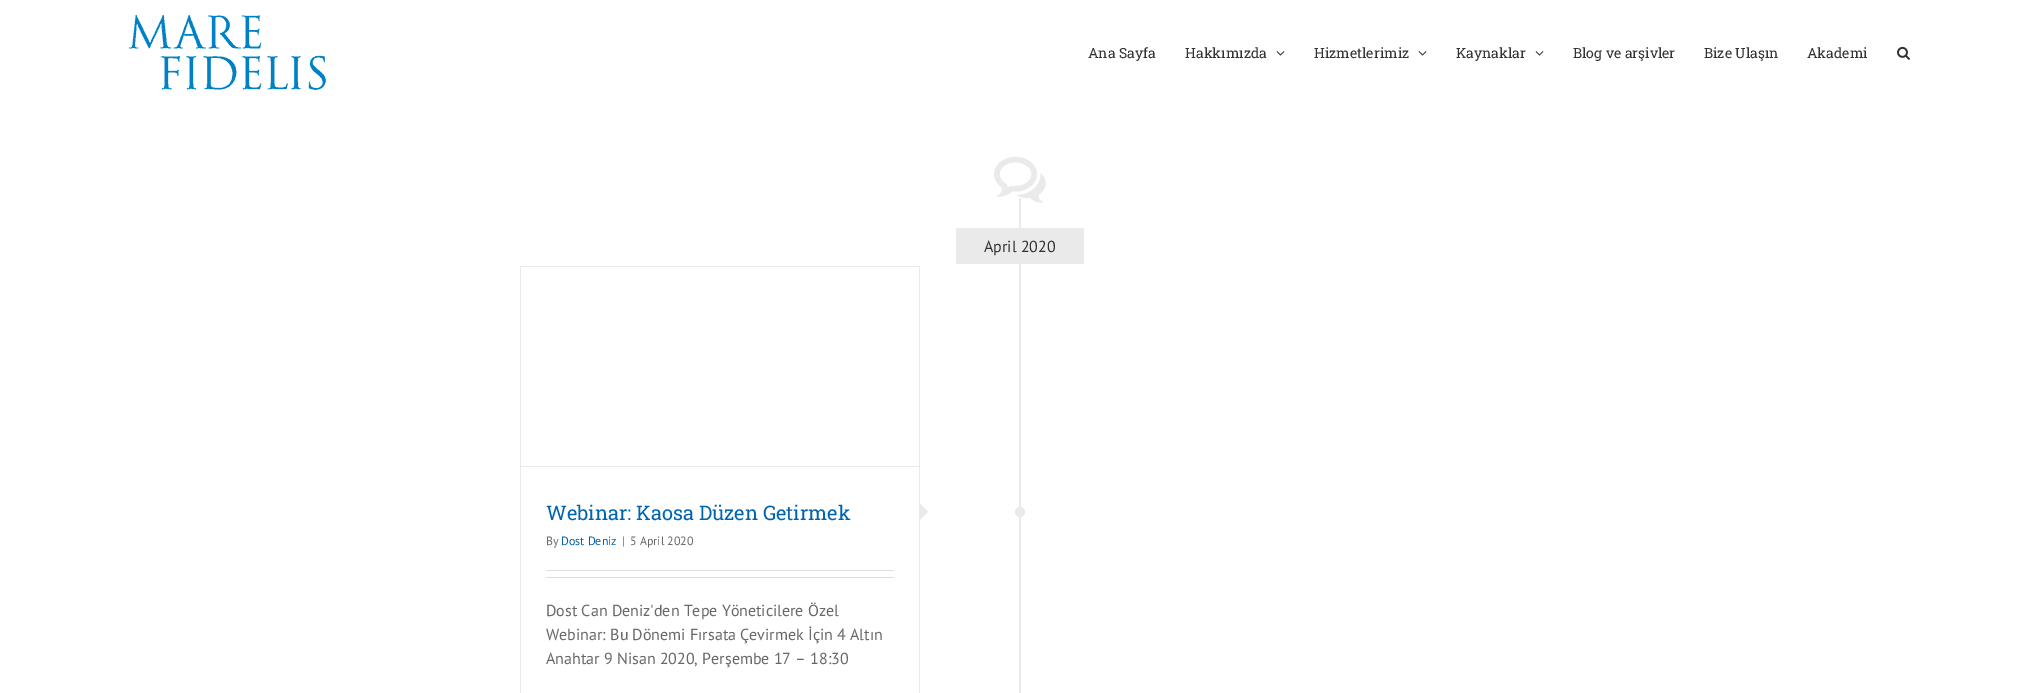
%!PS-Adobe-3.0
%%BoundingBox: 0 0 2039 693
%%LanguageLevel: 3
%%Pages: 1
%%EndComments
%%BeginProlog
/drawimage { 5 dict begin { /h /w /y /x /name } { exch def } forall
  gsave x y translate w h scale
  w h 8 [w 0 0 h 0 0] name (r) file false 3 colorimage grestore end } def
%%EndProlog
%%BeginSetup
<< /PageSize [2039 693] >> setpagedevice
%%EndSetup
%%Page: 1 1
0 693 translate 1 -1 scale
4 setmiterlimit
1 setgray
0 0 2039 693 rectfill
(images/1.raw) 129 15 197 75 drawimage
(images/2.raw) 1276 51 9 5 drawimage
(images/2.raw) 1418 51 9 5 drawimage
(images/2.raw) 1535 51 9 5 drawimage
(images/3.raw) 1897 46 13 14 drawimage
(images/4.raw) 994 156 52 47 drawimage
0.922 0.918 0.918 setrgbcolor
1019 198 2 495 rectfill
956 228 128 36 rectfill
0.918 setgray
520 266 400 1 rectfill
919 266 1 427 rectfill
520 266 1 427 rectfill
0.922 0.918 0.918 setrgbcolor
521 466 398 1 rectfill
0.878 0.871 0.871 setrgbcolor
546 570 348 1 rectfill
546 577 348 1 rectfill
(images/5.raw) 920 504 8 16 drawimage
0.922 0.918 0.918 setrgbcolor
newpath 1020 512 5 0 360 arc closepath fill
/RobotoSlab-Regular [14 0 0 -14 0 0] selectfont
0.2 setgray
1088 58 moveto (Ana Sayfa) show
1185 58 moveto (Hakkımızda) show
1314 58 moveto (Hizmetlerimiz) show
1456 58 moveto (Kaynaklar) show
1573 58 moveto (Blog ve arşivler) show
1704 58 moveto (Bize Ulaşın) show
1807 58 moveto (Akademi) show
/PTSans-Regular [16 0 0 -16 0 0] selectfont
984 252 moveto (April 2020) show
/RobotoSlab-Regular [20 0 0 -20 0 0] selectfont
0.004 0.392 0.686 setrgbcolor
546 520 moveto (Webinar: Kaosa Düzen Getirmek) show
/PTSans-Regular [12 0 0 -12 0 0] selectfont
0.408 setgray
546 545 moveto (By) show
0.004 0.392 0.686 setrgbcolor
561 545 moveto (Dost Deniz) show
0.408 setgray
622 545 moveto (|) show
630 545 moveto (5 April 2020) show
/PTSans-Regular [16 0 0 -16 0 0] selectfont
546 616 moveto (Dost Can Deniz'den Tepe Yöneticilere Özel) show
546 640 moveto (Webinar: Bu Dönemi Fırsata Çevirmek İçin 4 Altın) show
546 664 moveto (Anahtar 9 Nisan 2020, Perşembe 17 – 18:30) show
showpage
%%EOF
